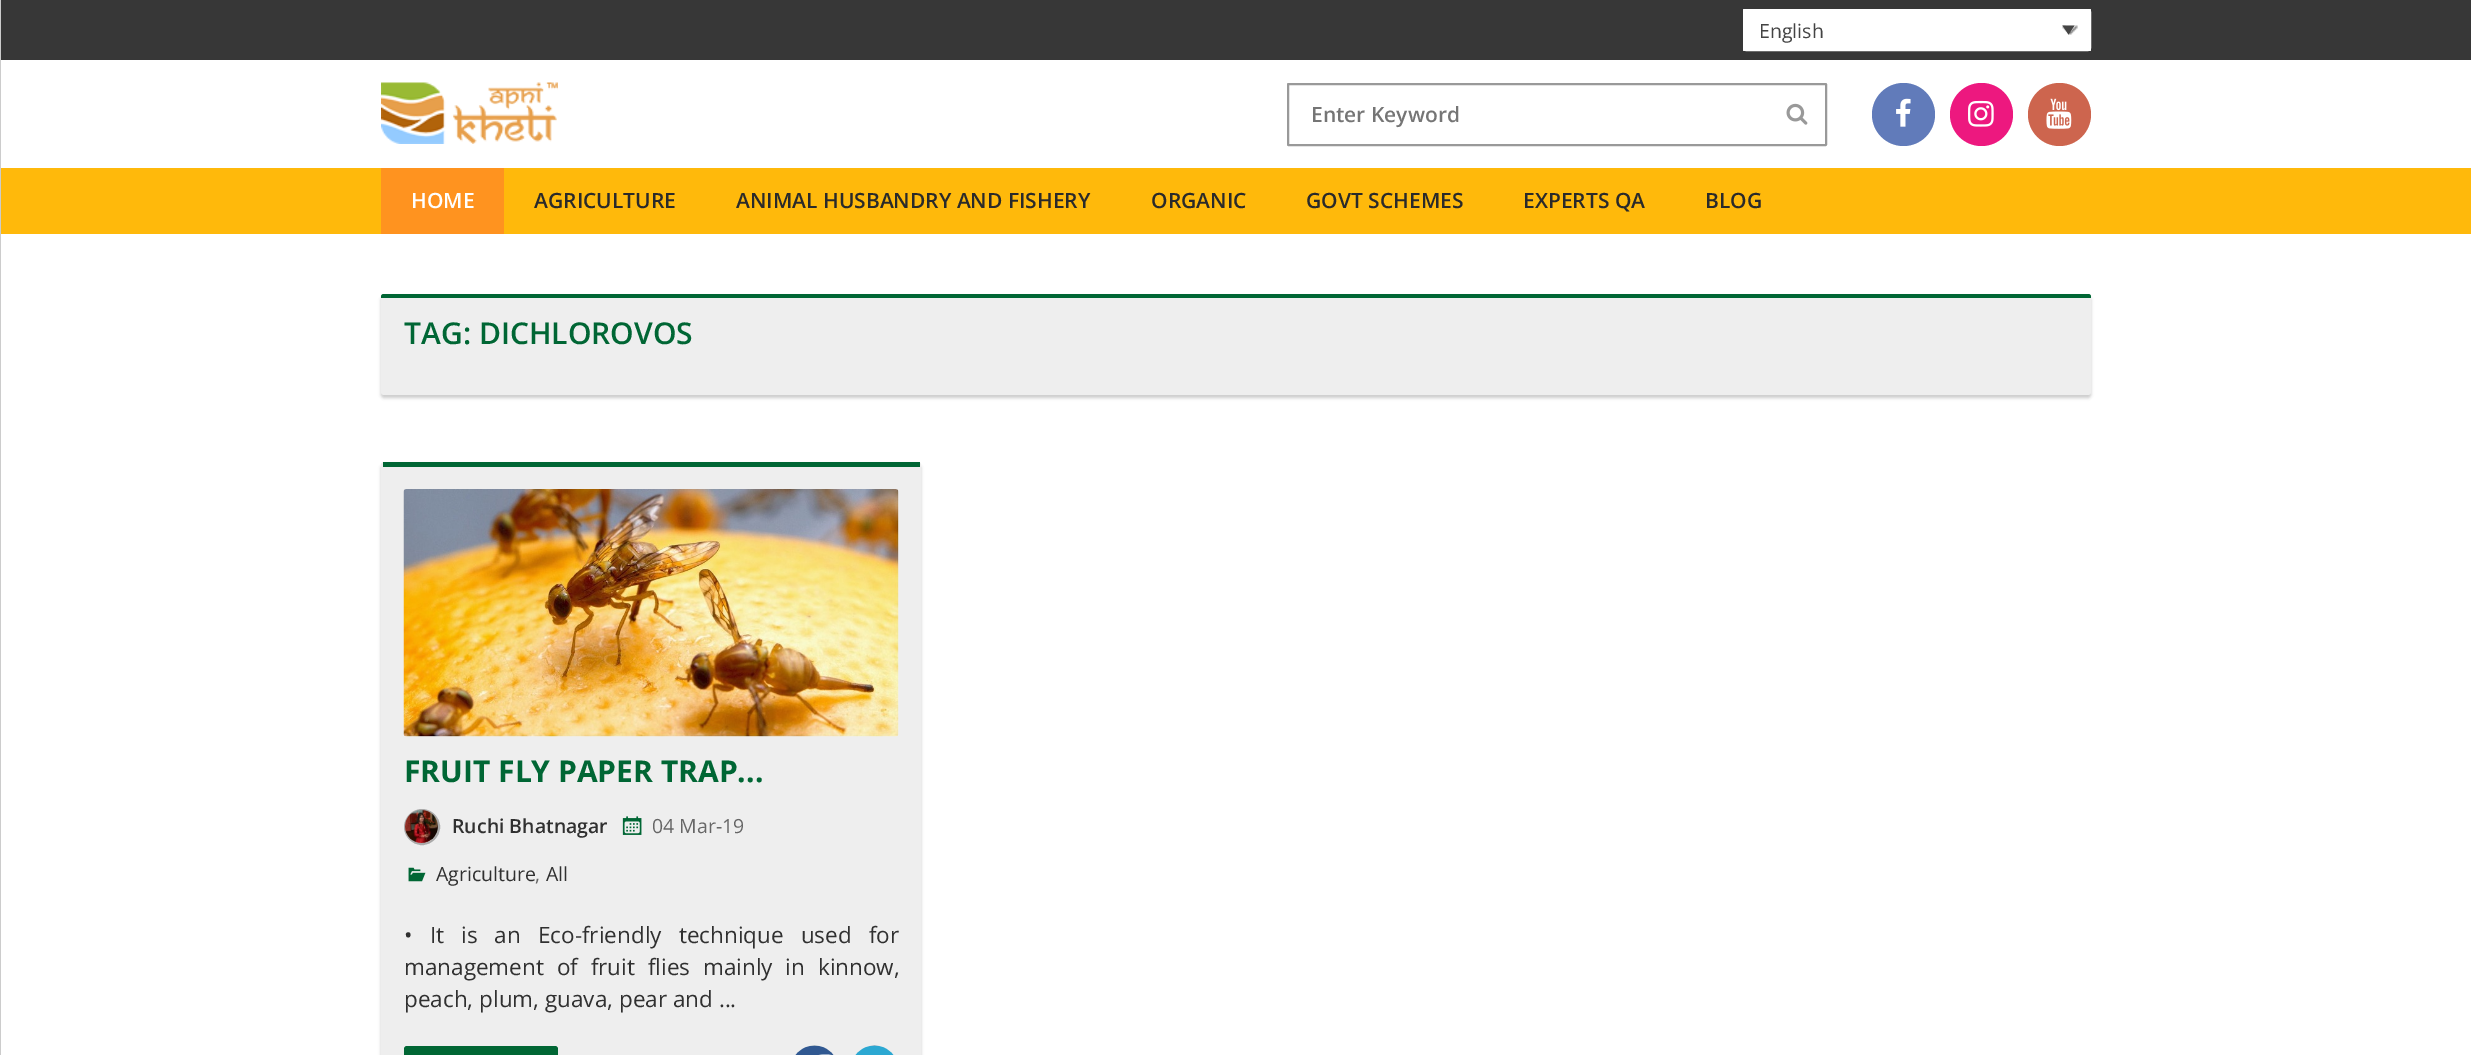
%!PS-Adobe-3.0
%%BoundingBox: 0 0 2471 1055
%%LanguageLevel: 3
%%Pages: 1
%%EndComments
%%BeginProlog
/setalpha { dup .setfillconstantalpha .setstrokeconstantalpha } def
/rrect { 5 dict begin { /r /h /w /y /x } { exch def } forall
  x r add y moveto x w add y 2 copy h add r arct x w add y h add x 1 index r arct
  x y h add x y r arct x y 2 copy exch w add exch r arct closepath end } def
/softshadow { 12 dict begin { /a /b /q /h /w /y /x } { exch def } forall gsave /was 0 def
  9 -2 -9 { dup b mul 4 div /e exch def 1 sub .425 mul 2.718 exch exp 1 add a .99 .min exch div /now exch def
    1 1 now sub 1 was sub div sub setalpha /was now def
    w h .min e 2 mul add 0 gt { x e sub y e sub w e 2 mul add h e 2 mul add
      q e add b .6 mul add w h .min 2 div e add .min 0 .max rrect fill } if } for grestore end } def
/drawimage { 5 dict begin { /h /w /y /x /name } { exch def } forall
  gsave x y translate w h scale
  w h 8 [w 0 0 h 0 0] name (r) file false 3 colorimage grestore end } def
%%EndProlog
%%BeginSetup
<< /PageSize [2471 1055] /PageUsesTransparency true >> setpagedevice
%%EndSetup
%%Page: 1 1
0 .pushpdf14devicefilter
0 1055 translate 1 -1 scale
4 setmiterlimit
1 setgray
0 0 2471 1055 rectfill
0.216 setgray
1 0 2470 60 rectfill
0.933 setgray
1743 9 348 42 rectfill
1 setgray
1743 9 348 42 3 rrect fill
(images/1.raw) 2062 25 16 10 drawimage
2 setlinewidth
1744 10 346 40 2 rrect stroke
0.267 setgray
newpath 2062.5 25.5 moveto 2074.5 25.5 lineto 2068.5 34.5 lineto closepath fill
0.8 setgray
0 0 1 1055 rectfill
(images/2.raw) 381 82 177 62 drawimage
0.6 setgray
1288 84 538 61 0.5 rrect stroke
(images/3.raw) 1786 103 22 22 drawimage
0.38 0.482 0.729 setrgbcolor
newpath 1903.5 114.5 31.5 0 360 arc closepath fill
(images/4.raw) 1896 98 15 29 drawimage
0.929 0.094 0.498 setrgbcolor
newpath 1981.5 114.5 31.5 0 360 arc closepath fill
(images/5.raw) 1968 100 26 27 drawimage
0.804 0.396 0.306 setrgbcolor
newpath 2059.5 114.5 31.5 0 360 arc closepath fill
(images/6.raw) 2046 98 26 31 drawimage
1 0.725 0.043 setrgbcolor
1 168 2470 66 rectfill
1 0.576 0.122 setrgbcolor
381 168 123 66 rectfill
0.8 setgray
381 297 1710 101 3 1.5 1 softshadow
0.933 setgray
381 294 1710 101 3 rrect fill
0 0.4 0.204 setrgbcolor
newpath 384 294 moveto 381 294 381 296 381 298 curveto 2091 298 lineto 2091 296 2091 294 2088 294 curveto closepath fill
0.8 setgray
381 465 540 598 3 1.5 1 softshadow
0.933 setgray
381 462 540 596 3 rrect fill
0 0.4 0.204 setrgbcolor
383 462 537 5 rectfill
(images/7.raw) 403 489 496 248 drawimage
0.667 setgray
newpath 422 827 17 0 360 arc closepath stroke
(images/8.raw) 405 810 33 33 drawimage
(images/9.raw) 622 816 20 19 drawimage
(images/10.raw) 408 867 18 15 drawimage
0 0.4 0.204 setrgbcolor
404 1046 154 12 3 rrect fill
(images/11.raw) 795 1045 39 10 drawimage
(images/12.raw) 855 1045 39 10 drawimage
/OpenSans-Regular [19.5 0 0 -19.5 0 0] selectfont
0.267 setgray
1759 38 moveto (English) show
/OpenSans-SemiBold [21 0 0 -21 0 0] selectfont
0.459 setgray
1311 122 moveto (Enter Keyword) show
1 setgray
411 208 moveto (HOME) show
0.165 setgray
534 208 moveto (AGRICULTURE) show
736 208 moveto (ANIMAL HUSBANDRY AND FISHERY) show
1151 208 moveto (ORGANIC) show
1306 208 moveto (GOVT SCHEMES) show
1523 208 moveto (EXPERTS QA) show
1705 208 moveto (BLOG) show
/OpenSans-SemiBold [30 0 0 -30 0 0] selectfont
0 0.4 0.204 setrgbcolor
404 344 moveto (TAG: DICHLOROVOS) show
/OpenSans-Bold [30 0 0 -30 0 0] selectfont
404 782 moveto (FRUIT FLY PAPER TRAP...) show
/OpenSans-SemiBold [19.5 0 0 -19.5 0 0] selectfont
0.188 setgray
452 833 moveto (Ruchi Bhatnagar) show
/OpenSans-Regular [19.5 0 0 -19.5 0 0] selectfont
0.4 setgray
652 833 moveto (04 Mar-19) show
0.188 setgray
436 881 moveto (Agriculture) show
0.4 setgray
535 881 moveto (,) show
0.188 setgray
546 881 moveto (All) show
/OpenSans-Regular [22.5 0 0 -22.5 0 0] selectfont
404 943 moveto 11.25 0 32 (• It is an Eco-friendly technique used for) widthshow
404 975 moveto 7 0 32 (management of fruit flies mainly in kinnow,) widthshow
404 1007 moveto (peach, plum, guava, pear and ...) show
.poppdf14devicefilter showpage
%%EOF
